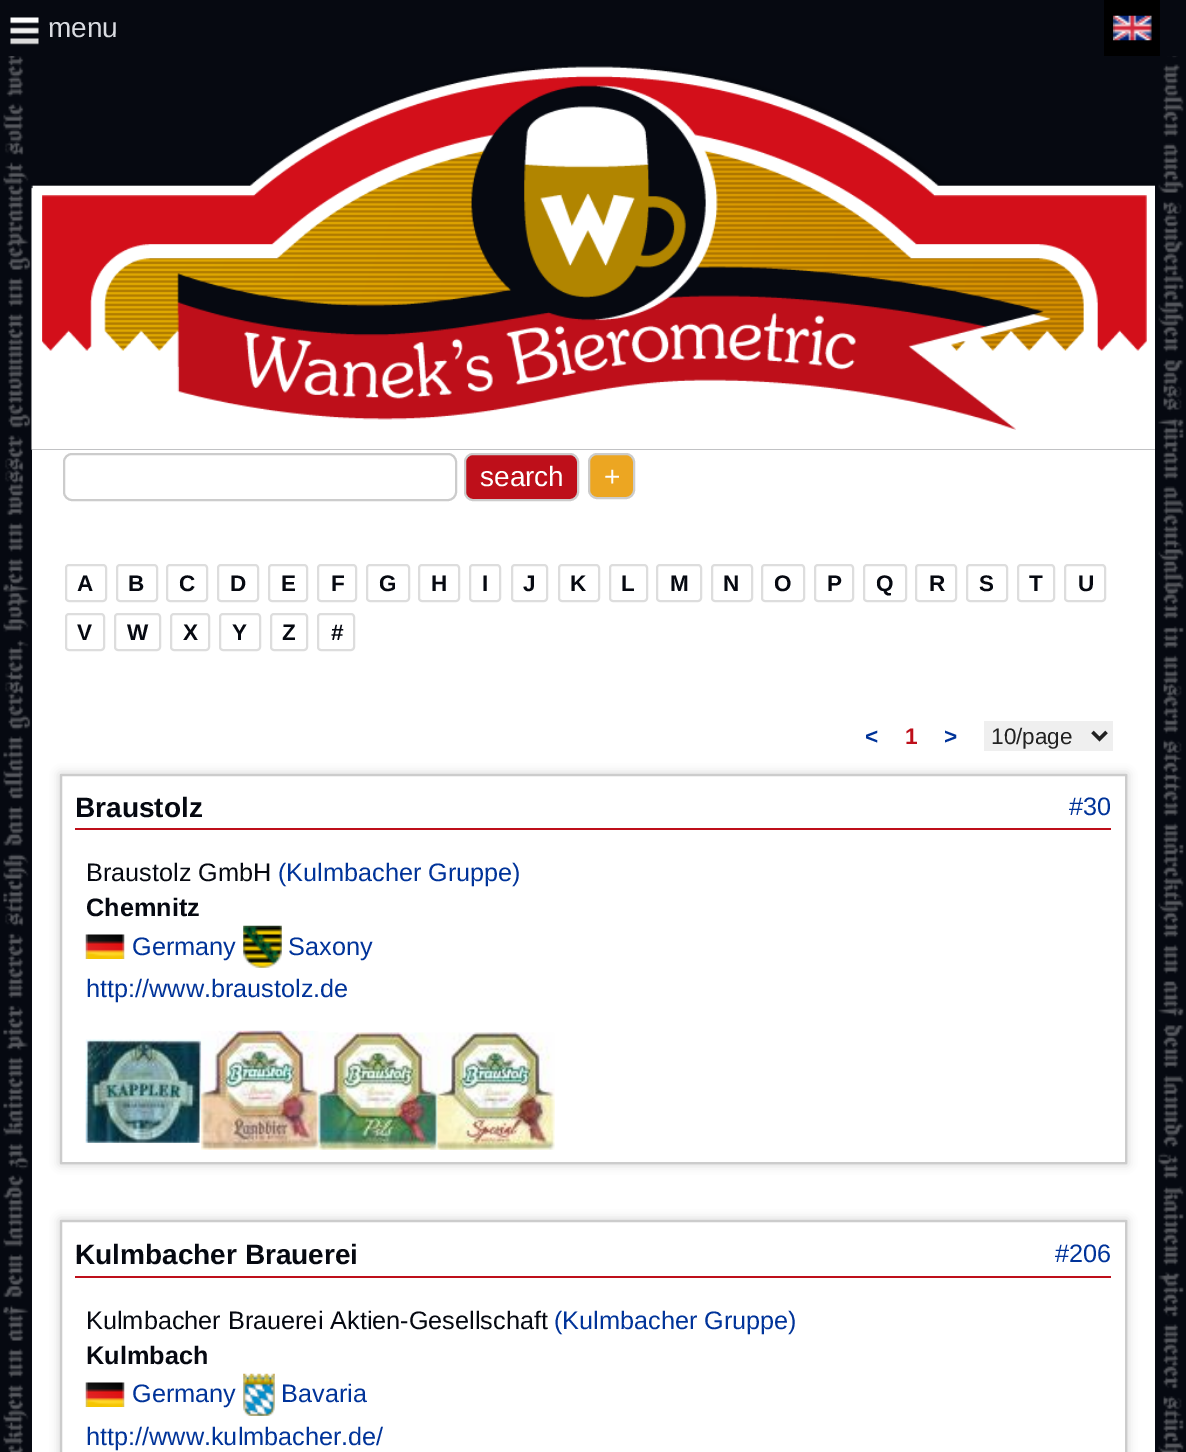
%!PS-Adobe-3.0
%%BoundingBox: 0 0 1186 1452
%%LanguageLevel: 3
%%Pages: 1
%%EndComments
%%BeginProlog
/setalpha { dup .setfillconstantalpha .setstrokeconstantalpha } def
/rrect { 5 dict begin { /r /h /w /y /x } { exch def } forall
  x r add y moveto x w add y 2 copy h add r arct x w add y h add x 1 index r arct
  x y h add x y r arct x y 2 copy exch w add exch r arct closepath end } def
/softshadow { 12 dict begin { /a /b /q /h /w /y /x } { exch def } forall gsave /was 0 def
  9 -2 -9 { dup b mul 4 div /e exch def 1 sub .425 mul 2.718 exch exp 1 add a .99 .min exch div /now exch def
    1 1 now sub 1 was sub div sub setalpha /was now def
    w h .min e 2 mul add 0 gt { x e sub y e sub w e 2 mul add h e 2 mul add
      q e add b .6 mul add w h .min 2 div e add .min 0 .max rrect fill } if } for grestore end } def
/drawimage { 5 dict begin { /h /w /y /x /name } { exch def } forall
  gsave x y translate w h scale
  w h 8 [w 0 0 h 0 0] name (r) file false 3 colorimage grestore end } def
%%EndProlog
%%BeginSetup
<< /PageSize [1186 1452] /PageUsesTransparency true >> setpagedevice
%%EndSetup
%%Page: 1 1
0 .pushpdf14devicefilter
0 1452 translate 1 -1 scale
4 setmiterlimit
0.024 0.035 0.067 setrgbcolor
0 0 1186 1452 rectfill
(images/1.raw) 3 56 28 1396 drawimage
1 setgray
32 450 1123 1002 rectfill
(images/2.raw) 10 17 29 28 drawimage
0 setgray
1104 0 56 56 rectfill
(images/3.raw) 1113 15 39 26 drawimage
0.8 setgray
2 setlinewidth
64 454 392 46 8 rrect stroke
0.745 0.059 0.102 setrgbcolor
465 454 113 46 8 rrect gsave fill grestore
0.8 setgray
stroke
0.925 0.651 0.133 setrgbcolor
589 454 45 44 8 rrect gsave fill grestore
0.8 setgray
stroke
0.867 setgray
66 565 40 36 3 rrect stroke
117 565 40 36 3 rrect stroke
167 565 40 36 3 rrect stroke
218 565 40 36 3 rrect stroke
269 565 38 36 3 rrect stroke
318 565 38 36 3 rrect stroke
367 565 42 36 3 rrect stroke
419 565 40 36 3 rrect stroke
470 565 30 36 3 rrect stroke
512 565 35 36 3 rrect stroke
559 565 40 36 3 rrect stroke
610 565 37 36 3 rrect stroke
657 565 44 36 3 rrect stroke
712 565 40 36 3 rrect stroke
762 565 42 36 3 rrect stroke
815 565 38 36 3 rrect stroke
864 565 42 36 3 rrect stroke
916 565 40 36 3 rrect stroke
967 565 40 36 3 rrect stroke
1018 565 36 36 3 rrect stroke
1065 565 40 36 3 rrect stroke
66 614 38 36 3 rrect stroke
115 614 45 36 3 rrect stroke
171 614 38 36 3 rrect stroke
220 614 40 36 3 rrect stroke
271 614 36 36 3 rrect stroke
318 614 36 36 3 rrect stroke
0.937 setgray
984 721 129 30 rectfill
0.133 setgray
3.5 setlinewidth
newpath 1092.5 732 moveto 1099.5 739 lineto 1106.5 732 lineto stroke
0.8 setgray
60 774 1067 390 0 5 1 softshadow
1 setgray
newpath 61 775 moveto 1126 775 lineto 1126 1163 lineto 61 1163 lineto closepath gsave fill grestore
0.8 setgray
2 setlinewidth
stroke
0.745 0.059 0.102 setrgbcolor
75 828 1036 2 rectfill
(images/4.raw) 85 934 40 25 drawimage
(images/5.raw) 243 925 39 43 drawimage
(images/6.raw) 85 1039 117 104 drawimage
(images/7.raw) 201 1030 118 120 drawimage
(images/8.raw) 318 1032 120 118 drawimage
(images/9.raw) 437 1032 118 118 drawimage
gsave
newpath 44 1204 moveto 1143 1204 lineto 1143 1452 lineto 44 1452 lineto closepath 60 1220 moveto 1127 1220 lineto 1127 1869 lineto 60 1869 lineto closepath eoclip newpath
0.8 setgray
60 1220 1067 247 0 5 1 softshadow
grestore
0.8 setgray
61 1221 1065 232 rectstroke
0.745 0.059 0.102 setrgbcolor
75 1276 1036 2 rectfill
(images/4.raw) 85 1382 40 25 drawimage
(images/10.raw) 243 1373 32 43 drawimage
(images/11.raw) 1158 56 26 1396 drawimage
(images/12.raw) 31 66 1124 384 drawimage
/LiberationSans-Regular [28 0 0 -28 0 0] selectfont
0.851 0.859 0.882 setrgbcolor
48 37 moveto (menu) show
1 setgray
480 486 moveto (search) show
604 486 moveto (+) show
/LiberationSans-Bold [22.5 0 0 -22.5 0 0] selectfont
0.024 0.035 0.067 setrgbcolor
77 591 moveto (A) show
128 591 moveto (B) show
179 591 moveto (C) show
230 591 moveto (D) show
281 591 moveto (E) show
331 591 moveto (F) show
379 591 moveto (G) show
431 591 moveto (H) show
482 591 moveto (I) show
523 591 moveto (J) show
570 591 moveto (K) show
621 591 moveto (L) show
670 591 moveto (M) show
723 591 moveto (N) show
774 591 moveto (O) show
827 591 moveto (P) show
876 591 moveto (Q) show
929 591 moveto (R) show
979 591 moveto (S) show
1029 591 moveto (T) show
1078 591 moveto (U) show
77 640 moveto (V) show
127 640 moveto (W) show
183 640 moveto (X) show
232 640 moveto (Y) show
282 640 moveto (Z) show
331 640 moveto (#) show
0 0.2 0.6 setrgbcolor
865 744 moveto (<) show
0.745 0.059 0.102 setrgbcolor
905 744 moveto (1) show
0 0.2 0.6 setrgbcolor
944 744 moveto (>) show
/LiberationSans-Regular [22.5 0 0 -22.5 0 0] selectfont
0.133 setgray
991 744 moveto (10/page) show
/LiberationSans-Bold [28 0 0 -28 0 0] selectfont
0.024 0.035 0.067 setrgbcolor
75 817 moveto (Braustolz) show
/LiberationSans-Regular [25.25 0 0 -25.25 0 0] selectfont
0 0.2 0.6 setrgbcolor
1069 815 moveto (#30) show
0.024 0.035 0.067 setrgbcolor
86 881 moveto (Braustolz GmbH) show
0 0.2 0.6 setrgbcolor
278 881 moveto (\(Kulmbacher Gruppe\)) show
/LiberationSans-Bold [25.25 0 0 -25.25 0 0] selectfont
0.024 0.035 0.067 setrgbcolor
86 916 moveto (Chemnitz) show
/LiberationSans-Regular [25.25 0 0 -25.25 0 0] selectfont
0 0.2 0.6 setrgbcolor
132 955 moveto (Germany) show
288 955 moveto (Saxony) show
86 997 moveto (http://www.braustolz.de) show
/LiberationSans-Bold [28 0 0 -28 0 0] selectfont
0.024 0.035 0.067 setrgbcolor
75 1264 moveto (Kulmbacher Brauerei) show
/LiberationSans-Regular [25.25 0 0 -25.25 0 0] selectfont
0 0.2 0.6 setrgbcolor
1055 1262 moveto (#206) show
0.024 0.035 0.067 setrgbcolor
86 1329 moveto (Kulmbacher Brauerei Aktien-Gesellschaft) show
0 0.2 0.6 setrgbcolor
554 1329 moveto (\(Kulmbacher Gruppe\)) show
/LiberationSans-Bold [25.25 0 0 -25.25 0 0] selectfont
0.024 0.035 0.067 setrgbcolor
86 1364 moveto (Kulmbach) show
/LiberationSans-Regular [25.25 0 0 -25.25 0 0] selectfont
0 0.2 0.6 setrgbcolor
132 1402 moveto (Germany) show
281 1402 moveto (Bavaria) show
86 1445 moveto (http://www.kulmbacher.de/) show
.poppdf14devicefilter showpage
%%EOF
